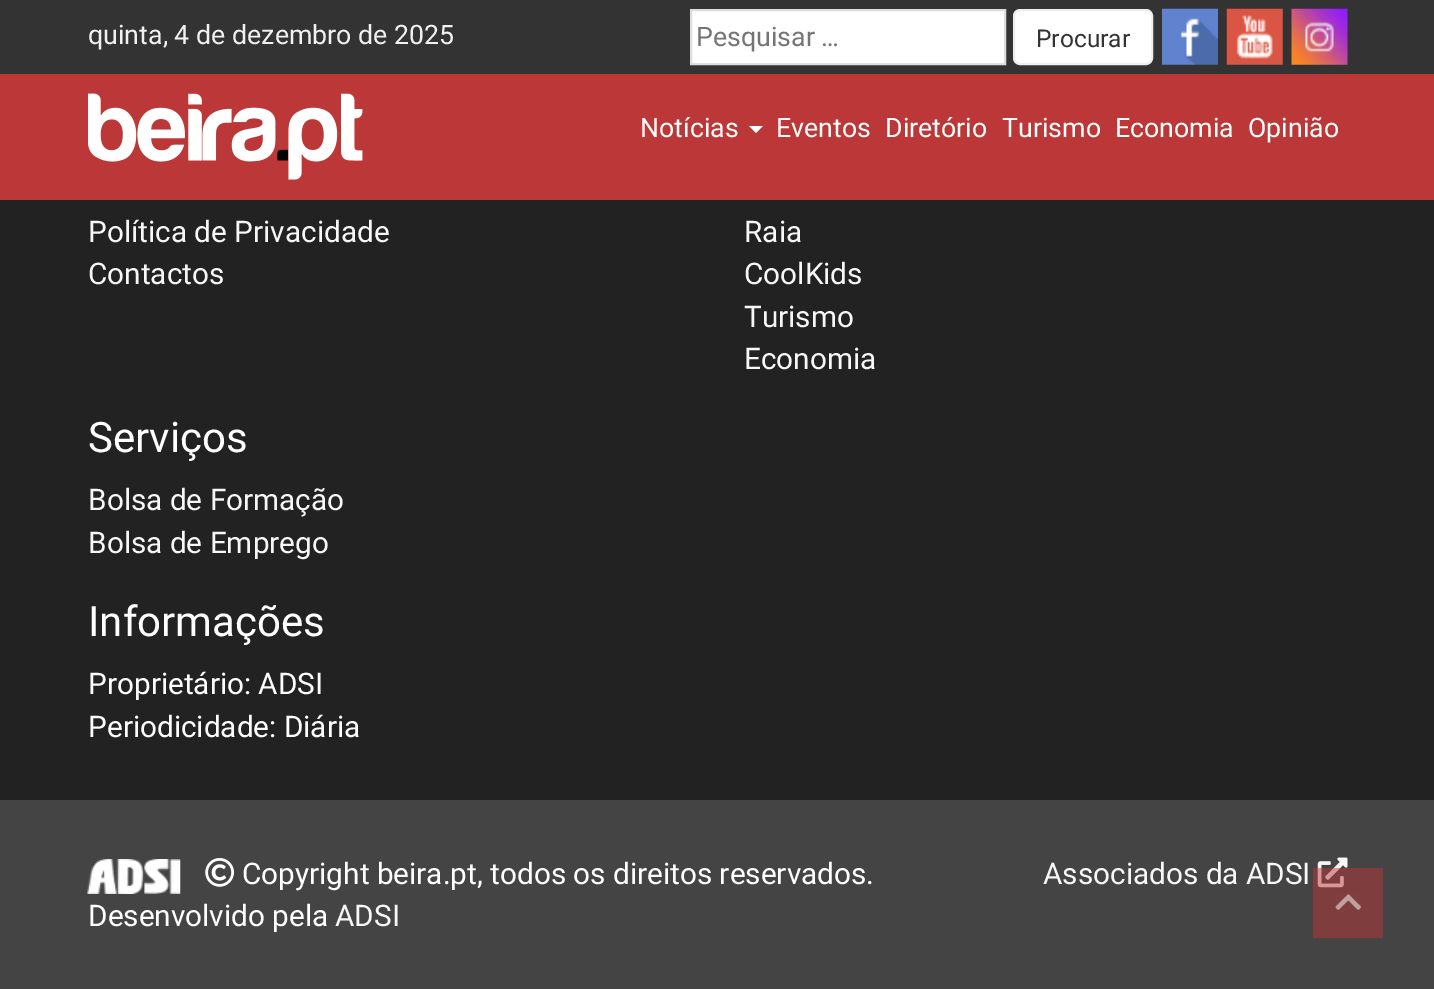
%!PS-Adobe-3.0
%%BoundingBox: 0 0 1434 989
%%LanguageLevel: 3
%%Pages: 1
%%EndComments
%%BeginProlog
/setalpha { dup .setfillconstantalpha .setstrokeconstantalpha } def
/rrect { 5 dict begin { /r /h /w /y /x } { exch def } forall
  x r add y moveto x w add y 2 copy h add r arct x w add y h add x 1 index r arct
  x y h add x y r arct x y 2 copy exch w add exch r arct closepath end } def
/drawimage { 5 dict begin { /h /w /y /x /name } { exch def } forall
  gsave x y translate w h scale
  w h 8 [w 0 0 h 0 0] name (r) file false 3 colorimage grestore end } def
%%EndProlog
%%BeginSetup
<< /PageSize [1434 989] /PageUsesTransparency true >> setpagedevice
%%EndSetup
%%Page: 1 1
0 .pushpdf14devicefilter
0 989 translate 1 -1 scale
4 setmiterlimit
0.133 setgray
0 0 1434 989 rectfill
0.737 0.216 0.216 setrgbcolor
0 74 1434 126 rectfill
0.2 setgray
0 0 1434 74 rectfill
1 setgray
newpath 691 10 moveto 1005 10 lineto 1005 64 lineto 691 64 lineto closepath gsave fill grestore
0.867 setgray
2 setlinewidth
stroke
1 setgray
1014 10 138 54 6 rrect gsave fill grestore
0.933 setgray
stroke
(images/1.raw) 1162 8 56 57 drawimage
(images/2.raw) 1226 8 57 57 drawimage
(images/3.raw) 1291 8 57 57 drawimage
(images/4.raw) 88 93 275 87 drawimage
1 setgray
newpath 749 126 moveto 763 126 lineto 756 133 lineto closepath fill
0.267 setgray
0 800 1434 189 rectfill
(images/5.raw) 87 859 94 35 drawimage
(images/6.raw) 205 858 29 29 drawimage
(images/7.raw) 1317 857 31 31 drawimage
0.5 setalpha
0.737 0.216 0.216 setrgbcolor
1313 868 70 70 rectfill
1 setalpha
(images/8.raw) 1335 894 26 16 drawimage
/Roboto-Regular [26.75 0 0 -26.75 0 0] selectfont
0.945 setgray
88 44 moveto (quinta, 4 de dezembro de 2025) show
0.459 setgray
696 46 moveto (Pesquisar …) show
/Roboto-Regular [24.5 0 0 -24.5 0 0] selectfont
0.2 setgray
1036 47 moveto (Procurar) show
/Roboto-Regular [26.75 0 0 -26.75 0 0] selectfont
1 setgray
640 137 moveto (Notícias) show
776 137 moveto (Eventos) show
885 137 moveto (Diretório) show
1002 137 moveto (Turismo) show
1115 137 moveto (Economia) show
1248 137 moveto (Opinião) show
/Roboto-Regular [29.75 0 0 -29.75 0 0] selectfont
0.969 setgray
88 242 moveto (Política de Privacidade) show
88 284 moveto (Contactos) show
744 242 moveto (Raia) show
744 284 moveto (CoolKids) show
744 327 moveto (Turismo) show
744 369 moveto (Economia) show
/Roboto-Regular [42 0 0 -42 0 0] selectfont
1 setgray
88 452 moveto (Serviços) show
/Roboto-Regular [29.75 0 0 -29.75 0 0] selectfont
0.969 setgray
88 510 moveto (Bolsa de Formação) show
88 553 moveto (Bolsa de Emprego) show
/Roboto-Regular [42 0 0 -42 0 0] selectfont
1 setgray
88 636 moveto (Informações) show
/Roboto-Regular [29.75 0 0 -29.75 0 0] selectfont
88 694 moveto (Proprietário: ADSI) show
88 737 moveto (Periodicidade: Diária) show
242 884 moveto (Copyright beira.pt, todos os direitos reservados.) show
88 926 moveto (Desenvolvido pela) show
0.969 setgray
335 926 moveto (ADSI) show
1043 884 moveto (Associados da ADSI) show
.poppdf14devicefilter showpage
%%EOF
